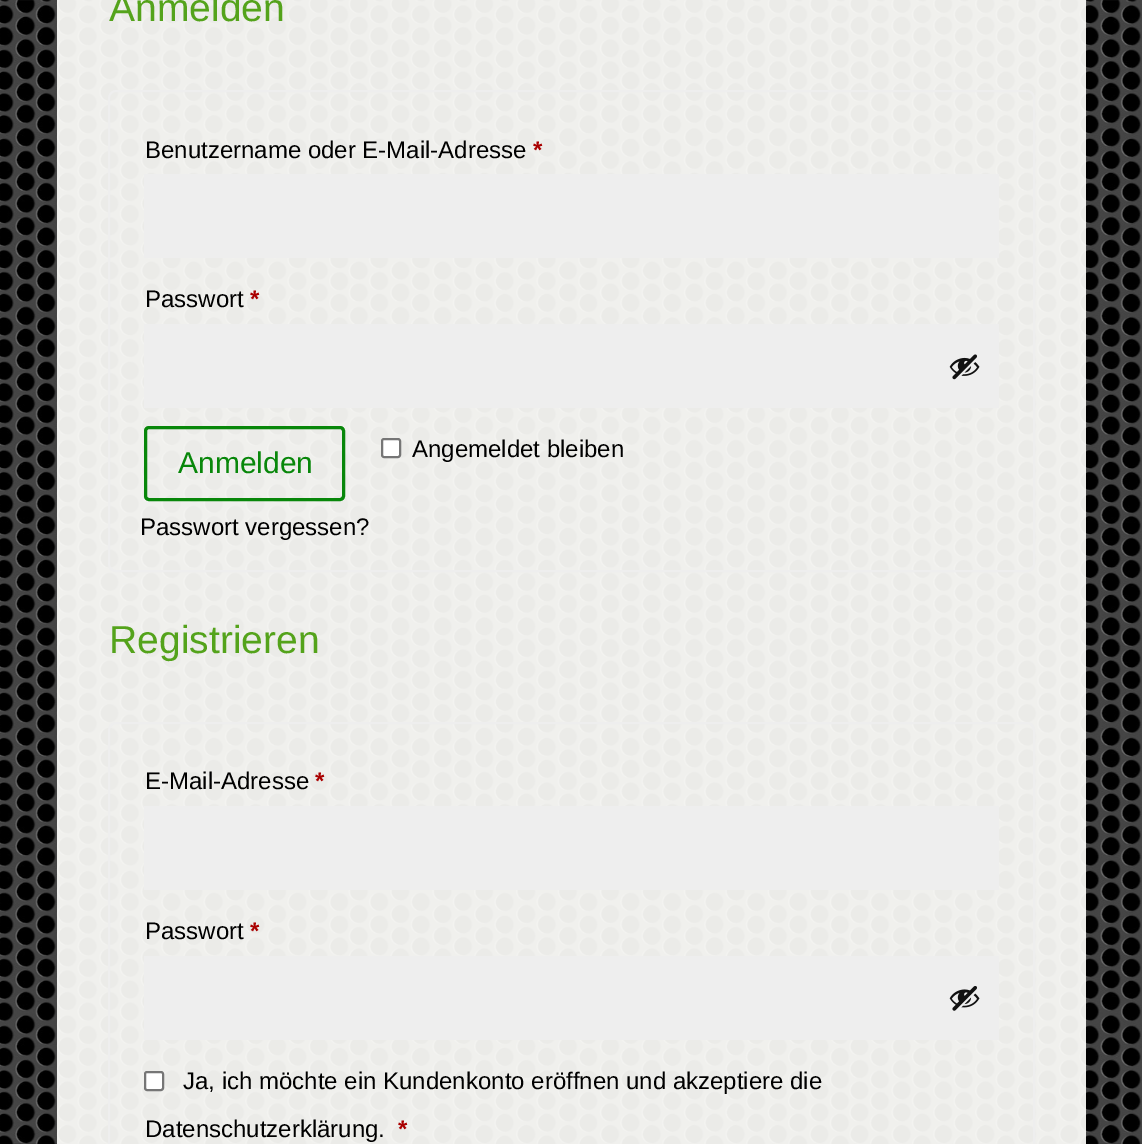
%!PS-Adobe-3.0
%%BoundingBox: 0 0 1142 1144
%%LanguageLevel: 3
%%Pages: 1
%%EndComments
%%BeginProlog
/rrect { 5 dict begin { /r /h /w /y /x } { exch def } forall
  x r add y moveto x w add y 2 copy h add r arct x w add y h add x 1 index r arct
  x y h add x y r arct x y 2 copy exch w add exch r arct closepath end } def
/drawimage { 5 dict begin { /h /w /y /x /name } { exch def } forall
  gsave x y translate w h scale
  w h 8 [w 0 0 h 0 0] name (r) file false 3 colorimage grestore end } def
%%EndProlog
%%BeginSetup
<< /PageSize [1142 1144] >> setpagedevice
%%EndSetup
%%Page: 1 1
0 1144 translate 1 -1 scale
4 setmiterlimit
1 setgray
0 0 1142 1144 rectfill
(images/1.raw) 0 0 1142 1144 drawimage
0.933 setgray
2 setlinewidth
109 91 925 480 7 rrect stroke
144 174 855 84 rectfill
144 324 855 84 rectfill
(images/2.raw) 949 354 31 26 drawimage
0.031 0.529 0.039 setrgbcolor
3 setlinewidth
145.5 427.5 198 72 3.5 rrect stroke
1 setgray
382 439 18 18 2 rrect gsave fill grestore
0.463 setgray
2 setlinewidth
stroke
0.933 setgray
109 723 925 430 7 rrect stroke
144 806 855 84 rectfill
144 956 855 84 rectfill
(images/3.raw) 949 986 31 25 drawimage
1 setgray
145 1072 18 18 2 rrect gsave fill grestore
0.463 setgray
stroke
/LiberationSans-Regular [39 0 0 -39 0 0] selectfont
0.329 0.639 0.106 setrgbcolor
109 21 moveto (Anmelden) show
/LiberationSans-Regular [24 0 0 -24 0 0] selectfont
0 setgray
145 158 moveto (Benutzername oder E-Mail-Adresse) show
/LiberationSans-Bold [24 0 0 -24 0 0] selectfont
0.667 0 0 setrgbcolor
533 158 moveto (*) show
/LiberationSans-Regular [24 0 0 -24 0 0] selectfont
0 setgray
145 307 moveto (Passwort) show
/LiberationSans-Bold [24 0 0 -24 0 0] selectfont
0.667 0 0 setrgbcolor
250 307 moveto (*) show
/LiberationSans-Regular [30 0 0 -30 0 0] selectfont
0.031 0.529 0.039 setrgbcolor
178 473 moveto (Anmelden) show
/LiberationSans-Regular [24 0 0 -24 0 0] selectfont
0 setgray
412 457 moveto (Angemeldet bleiben) show
140 535 moveto (Passwort vergessen?) show
/LiberationSans-Regular [39 0 0 -39 0 0] selectfont
0.329 0.639 0.106 setrgbcolor
109 653 moveto (Registrieren) show
/LiberationSans-Regular [24 0 0 -24 0 0] selectfont
0 setgray
145 789 moveto (E-Mail-Adresse) show
/LiberationSans-Bold [24 0 0 -24 0 0] selectfont
0.667 0 0 setrgbcolor
315 789 moveto (*) show
/LiberationSans-Regular [24 0 0 -24 0 0] selectfont
0 setgray
145 939 moveto (Passwort) show
/LiberationSans-Bold [24 0 0 -24 0 0] selectfont
0.667 0 0 setrgbcolor
250 939 moveto (*) show
/LiberationSans-Regular [24 0 0 -24 0 0] selectfont
0 setgray
183 1089 moveto (Ja, ich möchte ein Kundenkonto eröffnen und akzeptiere die) show
145 1137 moveto (Datenschutzerklärung.) show
/LiberationSans-Bold [24 0 0 -24 0 0] selectfont
0.667 0 0 setrgbcolor
398 1137 moveto (*) show
showpage
%%EOF
